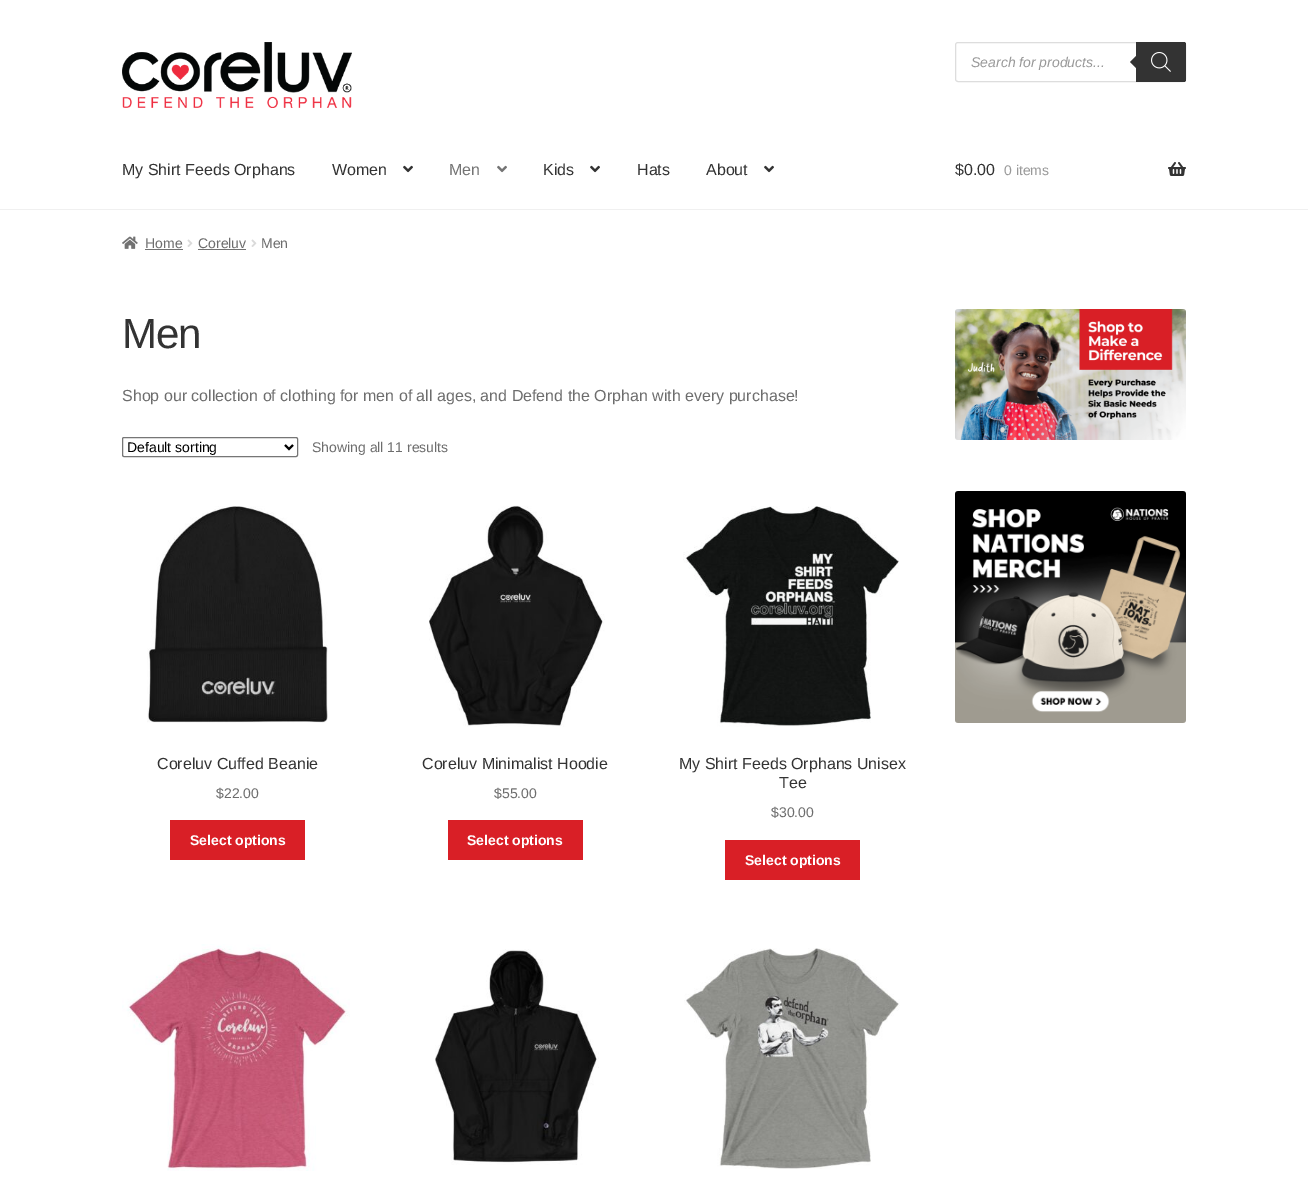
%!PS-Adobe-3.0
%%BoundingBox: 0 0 1308 1194
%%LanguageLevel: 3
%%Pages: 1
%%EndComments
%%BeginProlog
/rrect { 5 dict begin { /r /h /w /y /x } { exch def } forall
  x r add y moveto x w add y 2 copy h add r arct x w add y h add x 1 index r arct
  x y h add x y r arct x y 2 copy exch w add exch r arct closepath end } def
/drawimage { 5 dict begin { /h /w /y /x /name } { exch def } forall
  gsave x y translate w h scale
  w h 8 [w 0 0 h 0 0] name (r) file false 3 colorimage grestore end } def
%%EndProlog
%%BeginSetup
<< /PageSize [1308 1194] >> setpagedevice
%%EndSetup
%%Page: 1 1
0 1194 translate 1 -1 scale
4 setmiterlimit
1 setgray
0 0 1308 1194 rectfill
0.941 setgray
0 209 1308 1 rectfill
(images/1.raw) 122 42 230 66 drawimage
0.867 setgray
955.5 42.5 230 39 2.5 rrect stroke
0.2 setgray
newpath 1136 42 moveto 1184 42 lineto 1185 42 1186 43 1186 44 curveto 1186 80 lineto 1186 81 1185 82 1184 82 curveto 1136 82 lineto closepath fill
newpath 1138 54 moveto 1138 70 lineto 1130 62 lineto closepath fill
(images/2.raw) 1151 52 20 20 drawimage
(images/3.raw) 403 165 10 8 drawimage
(images/4.raw) 497 165 10 8 drawimage
(images/3.raw) 590 165 10 8 drawimage
(images/3.raw) 764 165 10 8 drawimage
(images/5.raw) 1168 162 18 14 drawimage
(images/6.raw) 122 236 16 13 drawimage
0.447 setgray
145 249 38 1 rectfill
(images/7.raw) 187 239 6 8 drawimage
198 249 48 1 rectfill
(images/7.raw) 251 239 6 8 drawimage
0.463 setgray
122.5 437.5 175 19 1.5 rrect stroke
0 setgray
2 setlinewidth
newpath 285 445 moveto 289 449 lineto 293 445 lineto stroke
(images/8.raw) 147 506 181 217 drawimage
0.851 0.122 0.149 setrgbcolor
170 820 135 40 rectfill
(images/9.raw) 429 505 176 222 drawimage
448 820 135 40 rectfill
(images/10.raw) 683 506 216 221 drawimage
725 840 135 40 rectfill
(images/11.raw) 122 944 228 227 drawimage
(images/12.raw) 435 949 164 216 drawimage
(images/13.raw) 684 948 216 221 drawimage
(images/14.raw) 955 309 231 131 drawimage
(images/15.raw) 955 491 231 232 drawimage
/LiberationSans-Italic [14 0 0 -14 0 0] selectfont
0.6 setgray
971 67 moveto (Search for products...) show
/LiberationSans-Regular [16 0 0 -16 0 0] selectfont
0.2 setgray
122 175 moveto (My Shirt Feeds Orphans) show
332 175 moveto (Women) show
0.455 setgray
449 175 moveto (Men) show
0.2 setgray
543 175 moveto (Kids) show
637 175 moveto (Hats) show
706 175 moveto (About) show
955 175 moveto ($0.00) show
/LiberationSans-Regular [14 0 0 -14 0 0] selectfont
0.6 setgray
1004 175 moveto (0 items) show
0.427 setgray
145 248 moveto (Home) show
198 248 moveto (Coreluv) show
261 248 moveto (Men) show
/LiberationSans-Regular [42 0 0 -42 0 0] selectfont
0.2 setgray
122 348 moveto -1 0 (Men) ashow
/LiberationSans-Regular [16 0 0 -16 0 0] selectfont
0.427 setgray
122 401 moveto (Shop our collection of clothing for men of all ages, and Defend the Orphan with every purchase!) show
/LiberationSans-Regular [14 0 0 -14 0 0] selectfont
0 setgray
127 452 moveto (Default sorting) show
0.427 setgray
312 452 moveto (Showing all 11 results) show
/LiberationSans-Regular [16 0 0 -16 0 0] selectfont
0.2 setgray
157 769 moveto (Coreluv Cuffed Beanie) show
/LiberationSans-Regular [14 0 0 -14 0 0] selectfont
0.427 setgray
216 798 moveto ($22.00) show
/LiberationSans-Bold [14 0 0 -14 0 0] selectfont
1 setgray
190 845 moveto (Select options) show
/LiberationSans-Regular [16 0 0 -16 0 0] selectfont
0.2 setgray
422 769 moveto (Coreluv Minimalist Hoodie) show
/LiberationSans-Regular [14 0 0 -14 0 0] selectfont
0.427 setgray
494 798 moveto ($55.00) show
/LiberationSans-Bold [14 0 0 -14 0 0] selectfont
1 setgray
467 845 moveto (Select options) show
/LiberationSans-Regular [16 0 0 -16 0 0] selectfont
0.2 setgray
679 769 moveto (My Shirt Feeds Orphans Unisex) show
779 788 moveto (Tee) show
/LiberationSans-Regular [14 0 0 -14 0 0] selectfont
0.427 setgray
771 817 moveto ($30.00) show
/LiberationSans-Bold [14 0 0 -14 0 0] selectfont
1 setgray
745 865 moveto (Select options) show
showpage
%%EOF
